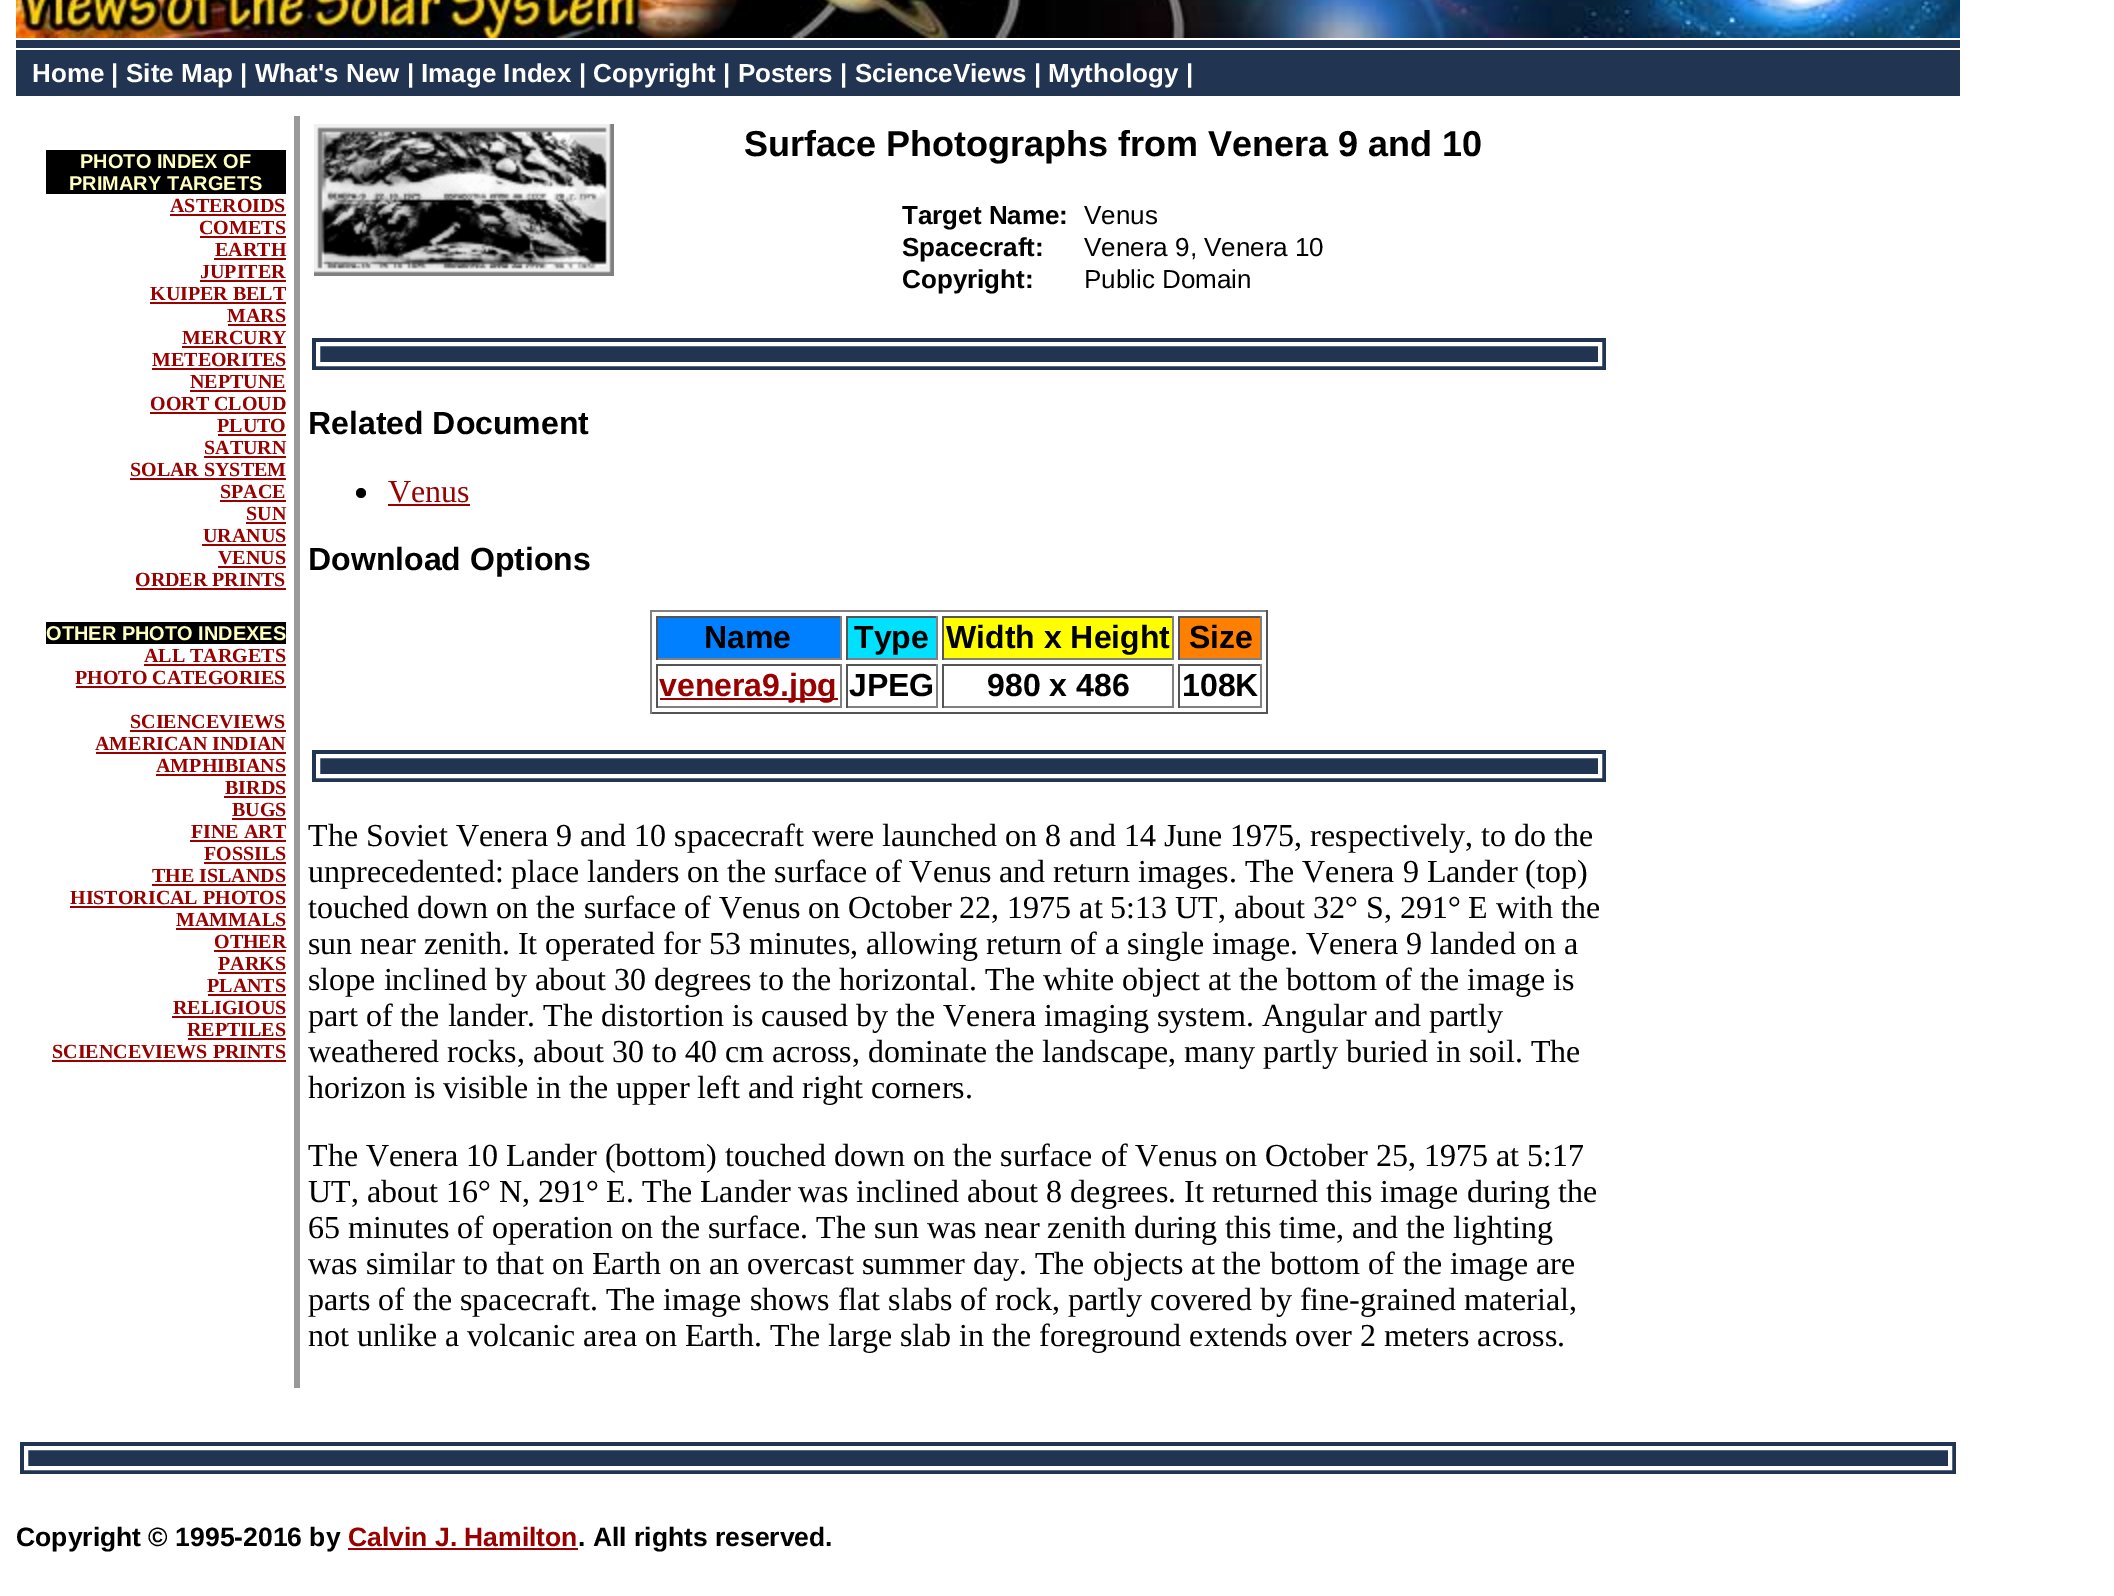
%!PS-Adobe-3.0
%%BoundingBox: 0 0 2114 1596
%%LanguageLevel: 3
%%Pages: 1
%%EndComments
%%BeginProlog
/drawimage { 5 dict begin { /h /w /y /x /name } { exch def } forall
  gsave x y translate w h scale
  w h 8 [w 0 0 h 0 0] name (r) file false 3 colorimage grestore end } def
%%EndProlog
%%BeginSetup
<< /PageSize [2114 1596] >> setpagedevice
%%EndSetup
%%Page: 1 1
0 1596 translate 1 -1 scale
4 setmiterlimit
1 setgray
0 0 2114 1596 rectfill
(images/1.raw) 16 0 1944 38 drawimage
0.129 0.204 0.322 setrgbcolor
16 40 1944 8 rectfill
16 50 1944 46 rectfill
0 setgray
46 150 240 44 rectfill
0.6 0 0 setrgbcolor
170 214 116 2 rectfill
200 236 86 2 rectfill
214 258 72 2 rectfill
200 280 86 2 rectfill
150 302 136 2 rectfill
228 324 58 2 rectfill
182 346 104 2 rectfill
152 368 134 2 rectfill
190 390 96 2 rectfill
150 412 136 2 rectfill
218 434 68 2 rectfill
204 456 82 2 rectfill
130 478 156 2 rectfill
220 500 66 2 rectfill
246 522 40 2 rectfill
202 544 84 2 rectfill
218 566 68 2 rectfill
136 588 150 2 rectfill
0 setgray
46 622 240 22 rectfill
0.6 0 0 setrgbcolor
144 664 142 2 rectfill
76 686 210 2 rectfill
130 730 156 2 rectfill
96 752 190 2 rectfill
156 774 130 2 rectfill
224 796 62 2 rectfill
232 818 54 2 rectfill
190 840 96 2 rectfill
204 862 82 2 rectfill
152 884 134 2 rectfill
70 906 216 2 rectfill
176 928 110 2 rectfill
214 950 72 2 rectfill
218 972 68 2 rectfill
208 994 78 2 rectfill
172 1016 114 2 rectfill
188 1038 98 2 rectfill
52 1060 234 2 rectfill
0.6 setgray
294 116 6 1272 rectfill
(images/2.raw) 314 124 300 152 drawimage
0.129 0.204 0.322 setrgbcolor
312 338 1294 32 rectfill
1 setgray
4 setlinewidth
318 344 1282 20 rectstroke
0 setgray
newpath 361 493 5 0 360 arc closepath fill
0.6 0 0 setrgbcolor
388 504 82 2 rectfill
0.502 setgray
650 610 618 2 rectfill
0.333 setgray
1266 610 2 104 rectfill
650 712 618 2 rectfill
0.502 setgray
650 610 2 104 rectfill
0 0.502 1 setrgbcolor
658 618 182 40 rectfill
0.333 setgray
656 616 186 2 rectfill
0.502 setgray
840 616 2 44 rectfill
656 658 186 2 rectfill
0.333 setgray
656 616 2 44 rectfill
0 0.878 1 setrgbcolor
848 618 88 40 rectfill
0.333 setgray
846 616 92 2 rectfill
0.502 setgray
936 616 2 44 rectfill
846 658 92 2 rectfill
0.333 setgray
846 616 2 44 rectfill
1 1 0 setrgbcolor
944 618 228 40 rectfill
0.333 setgray
942 616 232 2 rectfill
0.502 setgray
1172 616 2 44 rectfill
942 658 232 2 rectfill
0.333 setgray
942 616 2 44 rectfill
1 0.502 0 setrgbcolor
1180 618 80 40 rectfill
0.333 setgray
1178 616 84 2 rectfill
0.502 setgray
1260 616 2 44 rectfill
1178 658 84 2 rectfill
0.333 setgray
1178 616 2 44 rectfill
656 664 186 2 rectfill
0.502 setgray
840 664 2 44 rectfill
656 706 186 2 rectfill
0.333 setgray
656 664 2 44 rectfill
0.6 0 0 setrgbcolor
660 698 178 2 rectfill
0.333 setgray
846 664 92 2 rectfill
0.502 setgray
936 664 2 44 rectfill
846 706 92 2 rectfill
0.333 setgray
846 664 2 44 rectfill
942 664 232 2 rectfill
0.502 setgray
1172 664 2 44 rectfill
942 706 232 2 rectfill
0.333 setgray
942 664 2 44 rectfill
1178 664 84 2 rectfill
0.502 setgray
1260 664 2 44 rectfill
1178 706 84 2 rectfill
0.333 setgray
1178 664 2 44 rectfill
0.129 0.204 0.322 setrgbcolor
312 750 1294 32 rectfill
1 setgray
318 756 1282 20 rectstroke
0.129 0.204 0.322 setrgbcolor
20 1442 1936 32 rectfill
1 setgray
26 1448 1924 20 rectstroke
0.6 0 0 setrgbcolor
348 1548 230 2 rectfill
/LiberationSans-Bold [26 0 0 -26 0 0] selectfont
1 setgray
32 82 moveto (Home | Site Map | What's New | Image Index | Copyright | Posters | ScienceViews | Mythology |) show
/LiberationSans-Bold [20 0 0 -20 0 0] selectfont
1 1 0.753 setrgbcolor
80 168 moveto (PHOTO INDEX OF) show
69 190 moveto (PRIMARY TARGETS) show
/LiberationSerif-Bold [20 0 0 -20 0 0] selectfont
0.6 0 0 setrgbcolor
170 212 moveto (ASTEROIDS) show
199 234 moveto (COMETS) show
215 256 moveto (EARTH) show
200 278 moveto (JUPITER) show
150 300 moveto (KUIPER BELT) show
227 322 moveto (MARS) show
182 344 moveto (MERCURY) show
152 366 moveto (METEORITES) show
190 388 moveto (NEPTUNE) show
150 410 moveto (OORT CLOUD) show
217 432 moveto (PLUTO) show
204 454 moveto (SATURN) show
130 476 moveto (SOLAR SYSTEM) show
220 498 moveto (SPACE) show
246 520 moveto (SUN) show
203 542 moveto (URANUS) show
218 564 moveto (VENUS) show
135 586 moveto (ORDER PRINTS) show
/LiberationSans-Bold [20 0 0 -20 0 0] selectfont
1 1 0.753 setrgbcolor
46 640 moveto (OTHER PHOTO INDEXES) show
/LiberationSerif-Bold [20 0 0 -20 0 0] selectfont
0.6 0 0 setrgbcolor
144 662 moveto (ALL TARGETS) show
75 684 moveto (PHOTO CATEGORIES) show
130 728 moveto (SCIENCEVIEWS) show
95 750 moveto (AMERICAN INDIAN) show
156 772 moveto (AMPHIBIANS) show
225 794 moveto (BIRDS) show
232 816 moveto (BUGS) show
191 838 moveto (FINE ART) show
204 860 moveto (FOSSILS) show
152 882 moveto (THE ISLANDS) show
70 904 moveto (HISTORICAL PHOTOS) show
176 926 moveto (MAMMALS) show
214 948 moveto (OTHER) show
218 970 moveto (PARKS) show
207 992 moveto (PLANTS) show
173 1014 moveto (RELIGIOUS) show
187 1036 moveto (REPTILES) show
52 1058 moveto (SCIENCEVIEWS PRINTS) show
/LiberationSans-Bold [36 0 0 -36 0 0] selectfont
0 setgray
744 156 moveto (Surface Photographs from Venera 9 and 10) show
/LiberationSans-Bold [26 0 0 -26 0 0] selectfont
902 224 moveto (Target Name:) show
/LiberationSans-Regular [26 0 0 -26 0 0] selectfont
1084 224 moveto (Venus) show
/LiberationSans-Bold [26 0 0 -26 0 0] selectfont
902 256 moveto (Spacecraft:) show
/LiberationSans-Regular [26 0 0 -26 0 0] selectfont
1084 256 moveto (Venera 9, Venera 10) show
/LiberationSans-Bold [26 0 0 -26 0 0] selectfont
902 288 moveto (Copyright:) show
/LiberationSans-Regular [26 0 0 -26 0 0] selectfont
1084 288 moveto (Public Domain) show
/LiberationSans-Bold [32 0 0 -32 0 0] selectfont
308 434 moveto (Related Document) show
/LiberationSerif-Regular [32 0 0 -32 0 0] selectfont
0.6 0 0 setrgbcolor
388 502 moveto (Venus) show
/LiberationSans-Bold [32 0 0 -32 0 0] selectfont
0 setgray
308 570 moveto (Download Options) show
704 648 moveto (Name) show
854 648 moveto (Type) show
946 648 moveto (Width x Height) show
1189 648 moveto (Size) show
0.6 0 0 setrgbcolor
659 696 moveto (venera9.jpg) show
0 setgray
849 696 moveto (JPEG) show
987 696 moveto (980 x 486) show
1182 696 moveto (108K) show
/LiberationSerif-Regular [32 0 0 -32 0 0] selectfont
308 846 moveto (The Soviet Venera 9 and 10 spacecraft were launched on 8 and 14 June 1975, respectively, to do the) show
308 882 moveto (unprecedented: place landers on the surface of Venus and return images. The Venera 9 Lander \(top\)) show
308 918 moveto (touched down on the surface of Venus on October 22, 1975 at 5:13 UT, about 32° S, 291° E with the) show
308 954 moveto (sun near zenith. It operated for 53 minutes, allowing return of a single image. Venera 9 landed on a) show
308 990 moveto (slope inclined by about 30 degrees to the horizontal. The white object at the bottom of the image is) show
308 1026 moveto (part of the lander. The distortion is caused by the Venera imaging system. Angular and partly) show
308 1062 moveto (weathered rocks, about 30 to 40 cm across, dominate the landscape, many partly buried in soil. The) show
308 1098 moveto (horizon is visible in the upper left and right corners.) show
308 1166 moveto (The Venera 10 Lander \(bottom\) touched down on the surface of Venus on October 25, 1975 at 5:17) show
308 1202 moveto (UT, about 16° N, 291° E. The Lander was inclined about 8 degrees. It returned this image during the) show
308 1238 moveto (65 minutes of operation on the surface. The sun was near zenith during this time, and the lighting) show
308 1274 moveto (was similar to that on Earth on an overcast summer day. The objects at the bottom of the image are) show
308 1310 moveto (parts of the spacecraft. The image shows flat slabs of rock, partly covered by fine-grained material,) show
308 1346 moveto (not unlike a volcanic area on Earth. The large slab in the foreground extends over 2 meters across.) show
/LiberationSans-Bold [26.5 0 0 -26.5 0 0] selectfont
16 1546 moveto (Copyright © 1995-2016 by) show
0.6 0 0 setrgbcolor
348 1546 moveto (Calvin J. Hamilton) show
0 setgray
578 1546 moveto (. All rights reserved.) show
showpage
%%EOF
